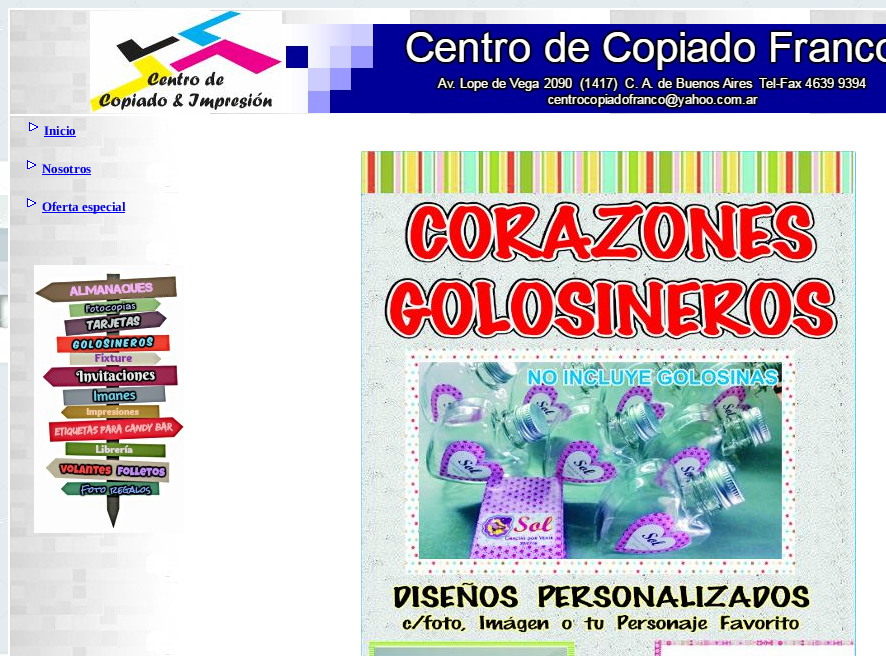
%!PS-Adobe-3.0
%%BoundingBox: 0 0 886 656
%%LanguageLevel: 3
%%Pages: 1
%%EndComments
%%BeginProlog
/drawimage { 5 dict begin { /h /w /y /x /name } { exch def } forall
  gsave x y translate w h scale
  w h 8 [w 0 0 h 0 0] name (r) file false 3 colorimage grestore end } def
%%EndProlog
%%BeginSetup
<< /PageSize [886 656] >> setpagedevice
%%EndSetup
%%Page: 1 1
0 656 translate 1 -1 scale
4 setmiterlimit
1 setgray
0 0 886 656 rectfill
(images/1.raw) 0 0 886 656 drawimage
8 8 878 648 rectfill
(images/2.raw) 10 10 876 104 drawimage
(images/3.raw) 90 11 192 102 drawimage
(images/4.raw) 282 24 604 89 drawimage
(images/5.raw) 10 116 168 540 drawimage
(images/6.raw) 29 122 9 9 drawimage
0 0 0.933 setrgbcolor
44 136 32 1 rectfill
(images/7.raw) 27 160 9 9 drawimage
42 174 49 1 rectfill
(images/8.raw) 27 198 9 9 drawimage
42 212 83 1 rectfill
(images/9.raw) 34 265 150 268 drawimage
(images/10.raw) 361 151 495 505 drawimage
/LiberationSerif-Bold [13 0 0 -13 0 0] selectfont
44 135 moveto (Inicio) show
42 173 moveto (Nosotros) show
42 211 moveto (Oferta especial) show
showpage
%%EOF
